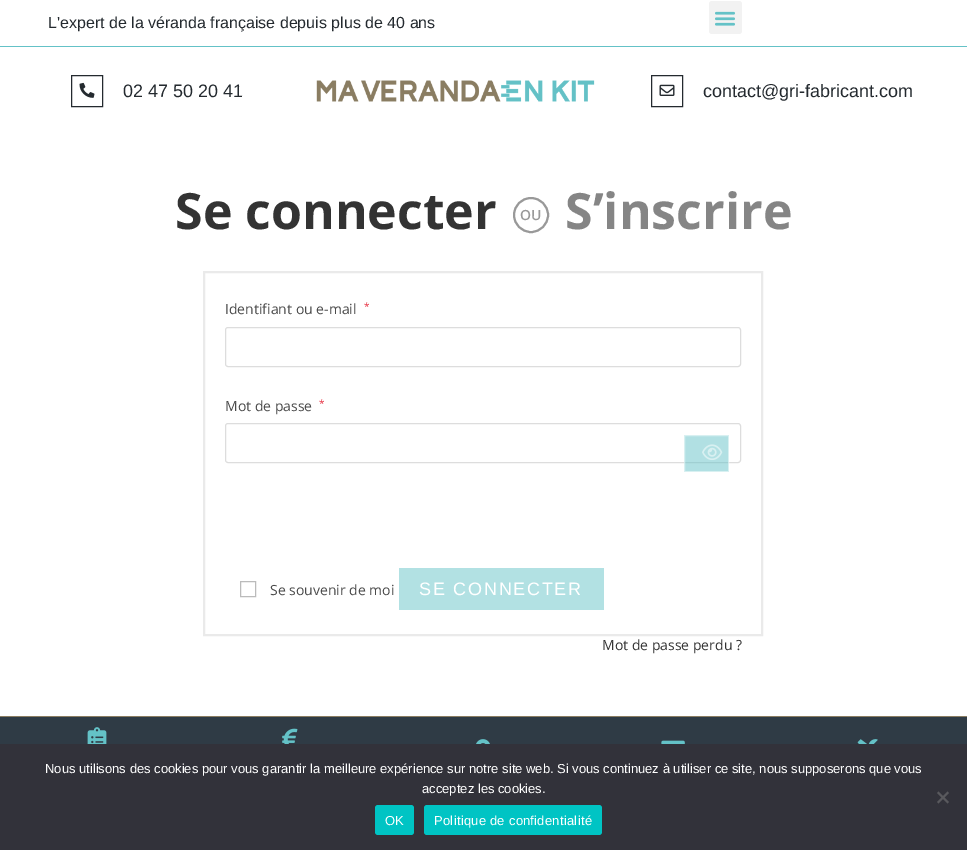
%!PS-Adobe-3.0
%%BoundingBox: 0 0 967 850
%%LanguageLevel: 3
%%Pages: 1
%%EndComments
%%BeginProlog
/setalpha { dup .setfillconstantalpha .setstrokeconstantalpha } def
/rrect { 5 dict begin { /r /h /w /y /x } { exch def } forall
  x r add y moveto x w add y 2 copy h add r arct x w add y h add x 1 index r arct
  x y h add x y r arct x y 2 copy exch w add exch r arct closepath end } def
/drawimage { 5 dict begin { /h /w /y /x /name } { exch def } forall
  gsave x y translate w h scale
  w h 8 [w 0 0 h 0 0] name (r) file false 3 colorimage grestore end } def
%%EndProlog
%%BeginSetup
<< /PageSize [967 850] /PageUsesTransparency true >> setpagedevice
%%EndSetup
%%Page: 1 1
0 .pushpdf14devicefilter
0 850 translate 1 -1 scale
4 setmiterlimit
1 setgray
0 0 967 850 rectfill
0.392 0.761 0.78 setrgbcolor
0 46 967 1 rectfill
0.949 setgray
709 1 33 33 3 rrect fill
(images/1.raw) 715 11 20 15 drawimage
0.141 0.165 0.184 setrgbcolor
71.5 75.5 31 31 rectstroke
(images/2.raw) 79 82 16 16 drawimage
(images/3.raw) 316 80 279 22 drawimage
651.5 75.5 31 31 rectstroke
(images/4.raw) 659 84 16 12 drawimage
0.6 setgray
2 setlinewidth
newpath 531 215 17 0 360 arc closepath stroke
0.918 setgray
204 272 558 363 rectstroke
0.867 setgray
1 setlinewidth
225.5 327.5 515 39 2.5 rrect stroke
225.5 423.5 515 39 2.5 rrect stroke
0.5 setalpha
0.392 0.761 0.78 setrgbcolor
684 435 45 37 rectfill
1 setgray
684.5 435.5 44 36 rectstroke
1 setalpha
(images/5.raw) 702 444 21 16 drawimage
0.733 setgray
240.5 581.5 15 15 rectstroke
0.698 0.882 0.89 setrgbcolor
399 568 205 42 rectfill
0.184 0.231 0.271 setrgbcolor
0 717 967 27 rectfill
0.541 0.49 0.384 setrgbcolor
0 716 967 1 rectfill
(images/6.raw) 87 727 20 17 drawimage
(images/7.raw) 282 728 16 16 drawimage
(images/8.raw) 476 739 14 5 drawimage
(images/9.raw) 661 740 24 4 drawimage
(images/10.raw) 857 739 21 5 drawimage
0.196 0.196 0.227 setrgbcolor
0 744 967 106 rectfill
0.349 0.349 0.365 setrgbcolor
newpath 947.5 791.5 moveto 949 793 lineto 938.5 803.5 lineto 937 802 lineto closepath fill
newpath 937 793 moveto 938.5 791.5 lineto 949 802 lineto 947.5 803.5 lineto closepath fill
0 0.769 0.769 setrgbcolor
375 805 39 30 3 rrect fill
424 805 178 30 3 rrect fill
/LiberationSans-Regular [16 0 0 -16 0 0] selectfont
0.141 0.165 0.184 setrgbcolor
48 28 moveto (L'expert de la véranda française depuis plus de 40 ans) show
/LiberationSans-Regular [18 0 0 -18 0 0] selectfont
123 97 moveto (02 47 50 20 41) show
703 97 moveto (contact@gri-fabricant.com) show
/OpenSans-Bold [50 0 0 -50 0 0] selectfont
0.2 setgray
175 229 moveto (Se connecter) show
/OpenSans-SemiBold [14 0 0 -14 0 0] selectfont
0.6 setgray
520 220 moveto (OU) show
/OpenSans-Bold [50 0 0 -50 0 0] selectfont
0.522 setgray
565 229 moveto (S’inscrire) show
/OpenSans-Regular [14 0 0 -14 0 0] selectfont
0.29 setgray
225 314 moveto (Identifiant ou e-mail) show
/OpenSans-Regular [10 0 0 -10 0 0] selectfont
0.894 0.133 0.204 setrgbcolor
364 310 moveto (*) show
/OpenSans-Regular [14 0 0 -14 0 0] selectfont
0.29 setgray
225 411 moveto (Mot de passe) show
/OpenSans-Regular [10 0 0 -10 0 0] selectfont
0.894 0.133 0.204 setrgbcolor
319 407 moveto (*) show
/OpenSans-Regular [14 0 0 -14 0 0] selectfont
0.29 setgray
270 595 moveto (Se souvenir de moi) show
/LiberationSans-Regular [18 0 0 -18 0 0] selectfont
1 setgray
419 595 moveto 1.75 0 (SE CONNECTER) ashow
/OpenSans-Regular [14 0 0 -14 0 0] selectfont
0.2 setgray
602 650 moveto (Mot de passe perdu ?) show
/LiberationSans-Regular [13 0 0 -13 0 0] selectfont
1 setgray
45 773 moveto (Nous utilisons des cookies pour vous garantir la meilleure expérience sur notre site web. Si vous continuez à utiliser ce site, nous supposerons que vous) show
422 793 moveto (acceptez les cookies.) show
385 825 moveto 0.25 0 (OK) ashow
434 825 moveto 0.25 0 (Politique de confidentialité) ashow
.poppdf14devicefilter showpage
%%EOF
